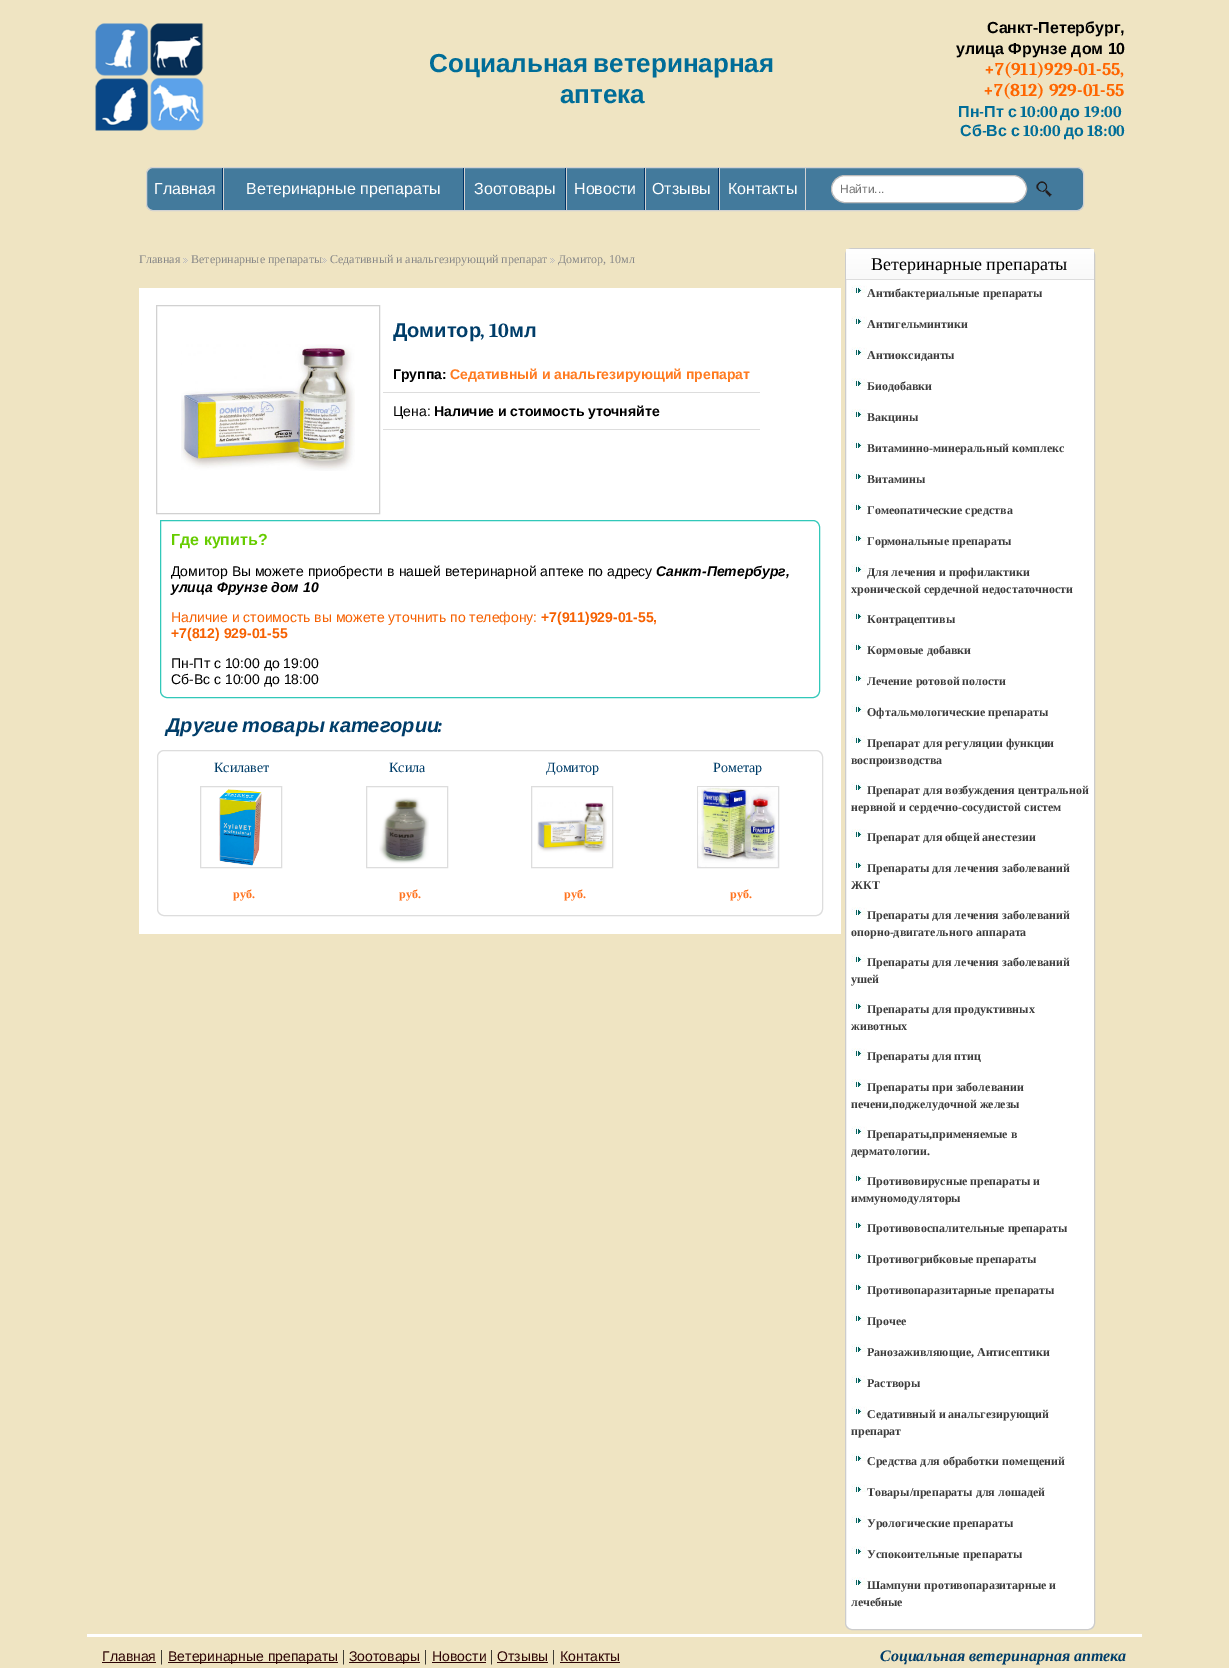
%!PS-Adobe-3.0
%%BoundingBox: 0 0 1229 1668
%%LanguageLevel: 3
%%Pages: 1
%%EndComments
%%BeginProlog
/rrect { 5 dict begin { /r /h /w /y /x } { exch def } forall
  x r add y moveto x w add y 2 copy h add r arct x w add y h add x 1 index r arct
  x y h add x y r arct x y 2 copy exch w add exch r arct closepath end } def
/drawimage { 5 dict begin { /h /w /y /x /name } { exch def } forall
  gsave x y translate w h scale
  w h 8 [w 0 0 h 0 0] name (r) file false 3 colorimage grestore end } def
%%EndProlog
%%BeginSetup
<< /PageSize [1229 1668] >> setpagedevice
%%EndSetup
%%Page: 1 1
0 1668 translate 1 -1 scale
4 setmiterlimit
0.937 0.894 0.761 setrgbcolor
0 0 1229 1668 rectfill
(images/1.raw) 95 23 109 108 drawimage
0.263 0.478 0.612 setrgbcolor
146.5 167.5 937 43 6.5 rrect gsave fill grestore
0.824 setgray
stroke
0 0.2 0.4 setrgbcolor
222 168 1 42 rectfill
463 168 1 42 rectfill
0.824 setgray
223 168 1 42 rectfill
0 0.2 0.4 setrgbcolor
565 168 1 42 rectfill
0.824 setgray
464 168 1 42 rectfill
0 0.2 0.4 setrgbcolor
644 168 1 42 rectfill
0.824 setgray
566 168 1 42 rectfill
0 0.2 0.4 setrgbcolor
718 168 1 42 rectfill
0.824 setgray
645 168 1 42 rectfill
719 168 1 42 rectfill
805 168 1 42 rectfill
1 setgray
831.5 175.5 195 27 13.5 rrect gsave fill grestore
0.737 0.733 0.733 setrgbcolor
stroke
(images/2.raw) 1036 181 16 16 drawimage
(images/3.raw) 183 258 5 5 drawimage
(images/3.raw) 322 258 5 5 drawimage
(images/3.raw) 550 258 5 5 drawimage
1 setgray
139 288 702 646 rectfill
0.82 setgray
156.5 305.5 223 208 rectstroke
(images/4.raw) 181 344 174 127 drawimage
0.867 setgray
383 392 377 1 rectfill
383 429 377 1 rectfill
0.192 0.784 0.725 setrgbcolor
newpath 160.5 520.5 moveto 813 520.5 lineto 816.5 520.5 819.5 523.5 819.5 527 curveto 819.5 691 lineto 819.5 694.5 816.5 697.5 813 697.5 curveto 167 697.5 lineto 163.5 697.5 160.5 694.5 160.5 691 curveto closepath stroke
0.867 setgray
157.5 750.5 665 165 6.5 rrect stroke
200.5 786.5 81 81 rectstroke
(images/5.raw) 219 789 43 77 drawimage
366.5 786.5 81 81 rectstroke
(images/6.raw) 379 797 50 67 drawimage
531.5 786.5 81 81 rectstroke
(images/7.raw) 537 802 70 51 drawimage
697.5 786.5 81 81 rectstroke
(images/8.raw) 698 787 80 80 drawimage
1 setgray
845.5 248.5 249 1381 6.5 rrect gsave fill grestore
0.8 setgray
stroke
gsave newpath 846 249 moveto 1094 249 lineto 1094 279 lineto 846 279 lineto closepath clip newpath
<< /ShadingType 2 /ColorSpace /DeviceRGB /Coords [970 249 970 279] /Extend [true true] /Function << /FunctionType 2 /Domain [0 1] /C0 [1 1 1] /C1 [0.976 0.976 0.976] /N 1 >> >> shfill grestore
0.867 setgray
846 279 248 1 rectfill
(images/9.raw) 851 285 16 8 drawimage
(images/9.raw) 851 316 16 8 drawimage
(images/9.raw) 851 347 16 8 drawimage
(images/9.raw) 851 378 16 8 drawimage
(images/9.raw) 851 409 16 8 drawimage
(images/9.raw) 851 440 16 8 drawimage
(images/9.raw) 851 471 16 8 drawimage
(images/9.raw) 851 502 16 8 drawimage
(images/9.raw) 851 533 16 8 drawimage
(images/9.raw) 851 564 16 8 drawimage
(images/9.raw) 851 611 16 8 drawimage
(images/9.raw) 851 642 16 8 drawimage
(images/9.raw) 851 673 16 8 drawimage
(images/9.raw) 851 704 16 8 drawimage
(images/9.raw) 851 735 16 8 drawimage
(images/9.raw) 851 782 16 8 drawimage
(images/9.raw) 851 829 16 8 drawimage
(images/9.raw) 851 860 16 8 drawimage
(images/9.raw) 851 907 16 8 drawimage
(images/9.raw) 851 954 16 8 drawimage
(images/9.raw) 851 1001 16 8 drawimage
(images/9.raw) 851 1048 16 8 drawimage
(images/9.raw) 851 1079 16 8 drawimage
(images/9.raw) 851 1126 16 8 drawimage
(images/9.raw) 851 1173 16 8 drawimage
(images/9.raw) 851 1220 16 8 drawimage
(images/9.raw) 851 1251 16 8 drawimage
(images/9.raw) 851 1282 16 8 drawimage
(images/9.raw) 851 1313 16 8 drawimage
(images/9.raw) 851 1344 16 8 drawimage
(images/9.raw) 851 1375 16 8 drawimage
(images/9.raw) 851 1406 16 8 drawimage
(images/9.raw) 851 1453 16 8 drawimage
(images/9.raw) 851 1484 16 8 drawimage
(images/9.raw) 851 1515 16 8 drawimage
(images/9.raw) 851 1546 16 8 drawimage
(images/9.raw) 851 1577 16 8 drawimage
1 setgray
87 1634 1055 3 rectfill
0.18 0.02 0.016 setrgbcolor
102 1662 54 1 rectfill
168 1662 170 1 rectfill
349 1662 71 1 rectfill
432 1662 54 1 rectfill
497 1662 51 1 rectfill
560 1662 60 1 rectfill
/LiberationSans-Bold [26 0 0 -26 0 0] selectfont
0 0.427 0.596 setrgbcolor
429 72 moveto -2 0 32 (Социальная ветеринарная) widthshow
560 103 moveto (аптека) show
/LiberationSans-Bold [16 0 0 -16 0 0] selectfont
0 setgray
987 33 moveto (Санкт-Петербург,) show
956 54 moveto (улица Фрунзе дом 10) show
/Caladea-Bold [18 0 0 -18 0 0] selectfont
1 0.4 0 setrgbcolor
984 75 moveto (+7\(911\)929-01-55,) show
983 96 moveto (+7\(812\) 929-01-55) show
/LiberationSans-Bold [16 0 0 -16 0 0] selectfont
0 0.427 0.596 setrgbcolor
958 117 moveto (Пн) show
/Caladea-Bold [16 0 0 -16 0 0] selectfont
979 117 moveto (-) show
/LiberationSans-Bold [16 0 0 -16 0 0] selectfont
984 117 moveto (Пт с) show
/Caladea-Bold [16 0 0 -16 0 0] selectfont
1020 117 moveto (10:00) show
/LiberationSans-Bold [16 0 0 -16 0 0] selectfont
1060 117 moveto (до) show
/Caladea-Bold [16 0 0 -16 0 0] selectfont
1084 117 moveto (19:00) show
/LiberationSans-Bold [16 0 0 -16 0 0] selectfont
960 136 moveto (Сб) show
/Caladea-Bold [16 0 0 -16 0 0] selectfont
982 136 moveto (-) show
/LiberationSans-Bold [16 0 0 -16 0 0] selectfont
986 136 moveto (Вс с) show
/Caladea-Bold [16 0 0 -16 0 0] selectfont
1023 136 moveto (10:00) show
/LiberationSans-Bold [16 0 0 -16 0 0] selectfont
1064 136 moveto (до) show
/Caladea-Bold [16 0 0 -16 0 0] selectfont
1087 136 moveto (18:00) show
/LiberationSans-Regular [16 0 0 -16 0 0] selectfont
1 setgray
154 194 moveto (Главная) show
246 194 moveto (Ветеринарные препараты) show
474 194 moveto (Зоотовары) show
574 194 moveto (Новости) show
652 194 moveto (Отзывы) show
728 194 moveto (Контакты) show
/LiberationSans-Regular [12 0 0 -12 0 0] selectfont
0.459 setgray
840 193 moveto (Найти...) show
/LiberationSerif-Regular [12 0 0 -12 0 0] selectfont
0.533 setgray
139 263 moveto (Главная) show
191 263 moveto (Ветеринарные препараты) show
330 263 moveto (Седативный и анальгезирующий препарат) show
558 263 moveto (Домитор, 10мл) show
/LiberationSans-Bold [20 0 0 -20 0 0] selectfont
0 0.239 0.412 setrgbcolor
393 337 moveto (Домитор) show
/Caladea-Bold [20 0 0 -20 0 0] selectfont
480 337 moveto (, 10) show
/LiberationSans-Bold [20 0 0 -20 0 0] selectfont
509 337 moveto (мл) show
/LiberationSans-Bold [14 0 0 -14 0 0] selectfont
0 setgray
393 379 moveto (Группа:) show
1 0.482 0.125 setrgbcolor
450 379 moveto (Седативный и анальгезирующий препарат) show
/LiberationSans-Regular [14 0 0 -14 0 0] selectfont
0 setgray
393 416 moveto (Цена:) show
/LiberationSans-Bold [14 0 0 -14 0 0] selectfont
434 416 moveto (Наличие и стоимость уточняйте) show
/LiberationSans-Bold [16 0 0 -16 0 0] selectfont
0.4 0.8 0 setrgbcolor
171 545 moveto (Где купить?) show
/LiberationSans-Regular [14 0 0 -14 0 0] selectfont
0 setgray
171 576 moveto (Домитор Вы можете приобрести в нашей ветеринарной аптеке по адресу) show
/LiberationSans-BoldItalic [14 0 0 -14 0 0] selectfont
656 576 moveto (Санкт-Петербург,) show
171 592 moveto (улица Фрунзе дом 10) show
/LiberationSans-Regular [14 0 0 -14 0 0] selectfont
0.965 0.376 0 setrgbcolor
171 622 moveto (Наличие и стоимость вы можете уточнить по телефону:) show
/LiberationSans-Bold [14 0 0 -14 0 0] selectfont
541 622 moveto (+7\(911\)929-01-55,) show
171 638 moveto (+7\(812\) 929-01-55) show
/LiberationSans-Regular [14 0 0 -14 0 0] selectfont
0 setgray
171 668 moveto (Пн-Пт с 10:00 до 19:00) show
171 684 moveto (Сб-Вс с 10:00 до 18:00) show
/LiberationSans-BoldItalic [20 0 0 -20 0 0] selectfont
0 0.239 0.412 setrgbcolor
166 732 moveto -1 0 32 (Другие товары категории) widthshow
/Caladea-BoldItalic [20 0 0 -20 0 0] selectfont
438 732 moveto (:) show
/LiberationSerif-Regular [14 0 0 -14 0 0] selectfont
214 772 moveto (Ксилавет) show
/LiberationSerif-Bold [12 0 0 -12 0 0] selectfont
1 0.455 0.125 setrgbcolor
233 898 moveto (руб.) show
/LiberationSerif-Regular [14 0 0 -14 0 0] selectfont
0 0.239 0.412 setrgbcolor
389 772 moveto (Ксила) show
/LiberationSerif-Bold [12 0 0 -12 0 0] selectfont
1 0.455 0.125 setrgbcolor
399 898 moveto (руб.) show
/LiberationSerif-Regular [14 0 0 -14 0 0] selectfont
0 0.239 0.412 setrgbcolor
546 772 moveto (Домитор) show
/LiberationSerif-Bold [12 0 0 -12 0 0] selectfont
1 0.455 0.125 setrgbcolor
564 898 moveto (руб.) show
/LiberationSerif-Regular [14 0 0 -14 0 0] selectfont
0 0.239 0.412 setrgbcolor
713 772 moveto (Рометар) show
/LiberationSerif-Bold [12 0 0 -12 0 0] selectfont
1 0.455 0.125 setrgbcolor
730 898 moveto (руб.) show
/LiberationSerif-Regular [18 0 0 -18 0 0] selectfont
0 setgray
871 270 moveto (Ветеринарные препараты) show
/LiberationSerif-Bold [12 0 0 -12 0 0] selectfont
0.239 setgray
867 297 moveto (Антибактериальные препараты) show
867 328 moveto (Антигельминтики) show
867 359 moveto (Антиоксиданты) show
867 390 moveto (Биодобавки) show
867 421 moveto (Вакцины) show
867 452 moveto (Витаминно-минеральный комплекс) show
867 483 moveto (Витамины) show
867 514 moveto (Гомеопатические средства) show
867 545 moveto (Гормональные препараты) show
867 576 moveto (Для лечения и профилактики) show
851 593 moveto (хронической сердечной недостаточности) show
867 623 moveto (Контрацептивы) show
867 654 moveto (Кормовые добавки) show
867 685 moveto (Лечение ротовой полости) show
867 716 moveto (Офтальмологические препараты) show
867 747 moveto (Препарат для регуляции функции) show
851 764 moveto (воспроизводства) show
867 794 moveto (Препарат для возбуждения центральной) show
851 811 moveto (нервной и сердечно-сосудистой систем) show
867 841 moveto (Препарат для общей анестезии) show
867 872 moveto (Препараты для лечения заболеваний) show
851 889 moveto (ЖКТ) show
867 919 moveto (Препараты для лечения заболеваний) show
851 936 moveto (опорно-двигательного аппарата) show
867 966 moveto (Препараты для лечения заболеваний) show
851 983 moveto (ушей) show
867 1013 moveto (Препараты для продуктивных) show
851 1030 moveto (животных) show
867 1060 moveto (Препараты для птиц) show
867 1091 moveto (Препараты при заболевании) show
851 1108 moveto (печени,поджелудочной железы) show
867 1138 moveto (Препараты,применяемые в) show
851 1155 moveto (дерматологии.) show
867 1185 moveto (Противовирусные препараты и) show
851 1202 moveto (иммуномодуляторы) show
867 1232 moveto (Противовоспалительные препараты) show
867 1263 moveto (Противогрибковые препараты) show
867 1294 moveto (Противопаразитарные препараты) show
867 1325 moveto (Прочее) show
867 1356 moveto (Ранозаживляющие, Антисептики) show
867 1387 moveto (Растворы) show
867 1418 moveto (Седативный и анальгезирующий) show
851 1435 moveto (препарат) show
867 1465 moveto (Средства для обработки помещений) show
867 1496 moveto (Товары/препараты для лошадей) show
867 1527 moveto (Урологические препараты) show
867 1558 moveto (Успокоительные препараты) show
867 1589 moveto (Шампуни противопаразитарные и) show
851 1606 moveto (лечебные) show
/LiberationSans-Regular [14 0 0 -14 0 0] selectfont
0.18 0.02 0.016 setrgbcolor
102 1661 moveto (Главная) show
/LiberationSerif-Regular [16 0 0 -16 0 0] selectfont
0 setgray
160 1661 moveto (|) show
/LiberationSans-Regular [14 0 0 -14 0 0] selectfont
0.18 0.02 0.016 setrgbcolor
168 1661 moveto (Ветеринарные препараты) show
/LiberationSerif-Regular [16 0 0 -16 0 0] selectfont
0 setgray
342 1661 moveto (|) show
/LiberationSans-Regular [14 0 0 -14 0 0] selectfont
0.18 0.02 0.016 setrgbcolor
349 1661 moveto (Зоотовары) show
/LiberationSerif-Regular [16 0 0 -16 0 0] selectfont
0 setgray
424 1661 moveto (|) show
/LiberationSans-Regular [14 0 0 -14 0 0] selectfont
0.18 0.02 0.016 setrgbcolor
432 1661 moveto (Новости) show
/LiberationSerif-Regular [16 0 0 -16 0 0] selectfont
0 setgray
490 1661 moveto (|) show
/LiberationSans-Regular [14 0 0 -14 0 0] selectfont
0.18 0.02 0.016 setrgbcolor
497 1661 moveto (Отзывы) show
/LiberationSerif-Regular [16 0 0 -16 0 0] selectfont
0 setgray
552 1661 moveto (|) show
/LiberationSans-Regular [14 0 0 -14 0 0] selectfont
0.18 0.02 0.016 setrgbcolor
560 1661 moveto (Контакты) show
/LiberationSerif-BoldItalic [16 0 0 -16 0 0] selectfont
0 0.239 0.412 setrgbcolor
880 1661 moveto (Социальная ветеринарная аптека) show
showpage
%%EOF
